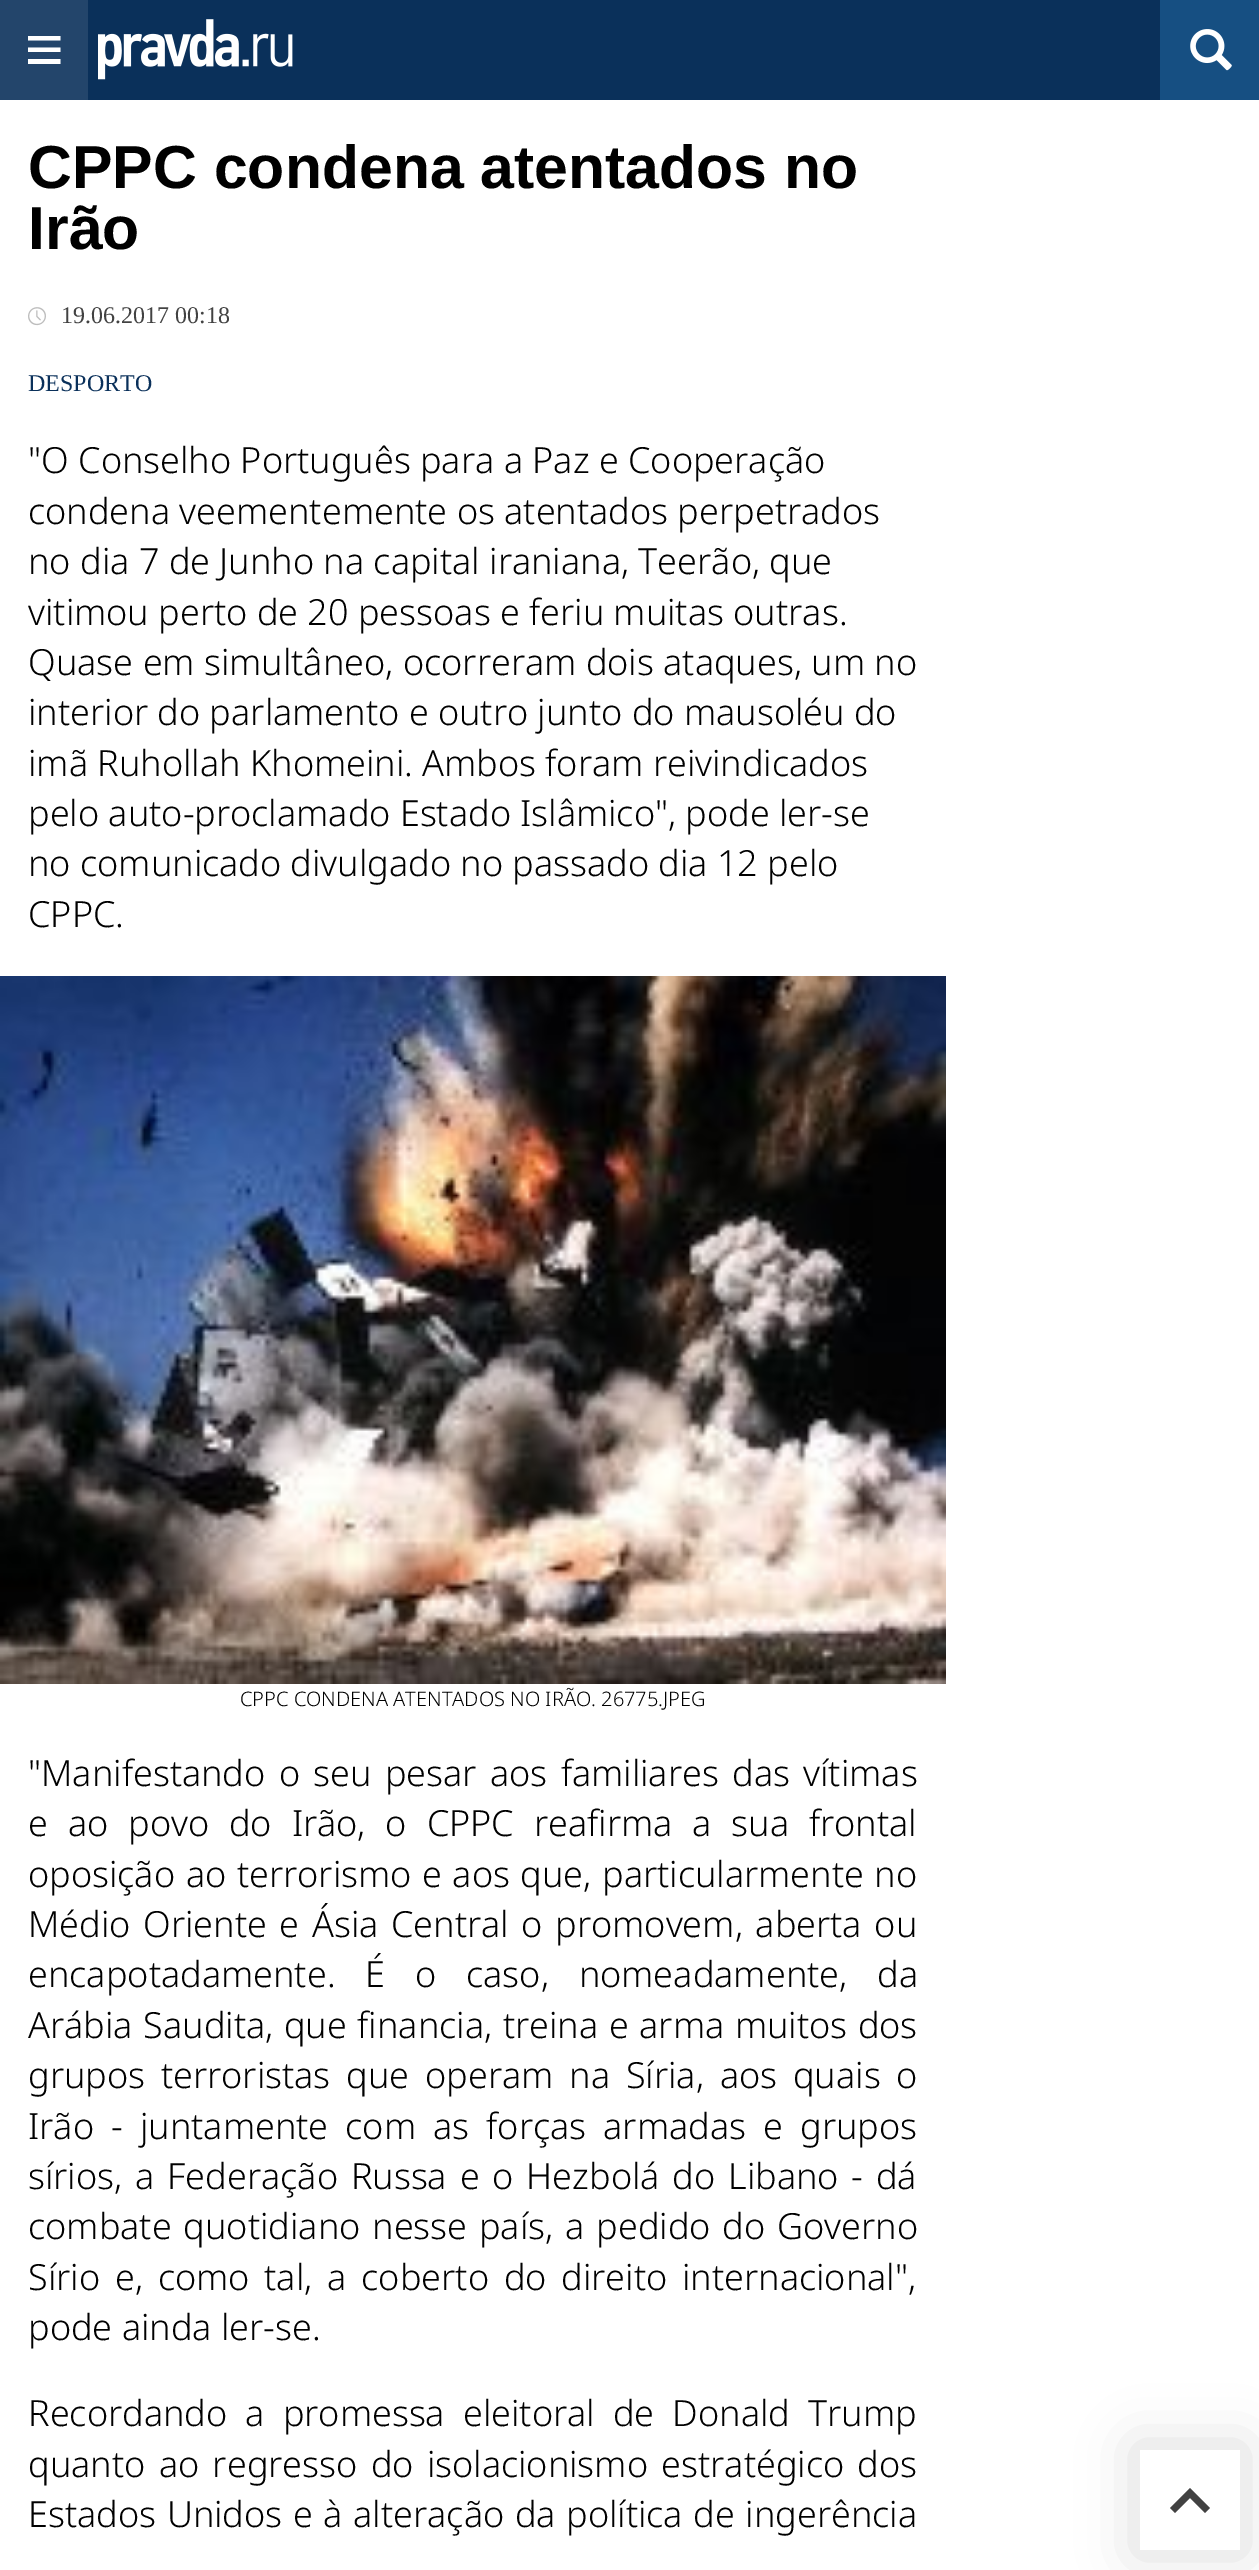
%!PS-Adobe-3.0
%%BoundingBox: 0 0 1259 2570
%%LanguageLevel: 3
%%Pages: 1
%%EndComments
%%BeginProlog
/setalpha { dup .setfillconstantalpha .setstrokeconstantalpha } def
/rrect { 5 dict begin { /r /h /w /y /x } { exch def } forall
  x r add y moveto x w add y 2 copy h add r arct x w add y h add x 1 index r arct
  x y h add x y r arct x y 2 copy exch w add exch r arct closepath end } def
/softshadow { 12 dict begin { /a /b /q /h /w /y /x } { exch def } forall gsave /was 0 def
  9 -2 -9 { dup b mul 4 div /e exch def 1 sub .425 mul 2.718 exch exp 1 add a .99 .min exch div /now exch def
    1 1 now sub 1 was sub div sub setalpha /was now def
    w h .min e 2 mul add 0 gt { x e sub y e sub w e 2 mul add h e 2 mul add
      q e add b .6 mul add w h .min 2 div e add .min 0 .max rrect fill } if } for grestore end } def
/drawimage { 5 dict begin { /h /w /y /x /name } { exch def } forall
  gsave x y translate w h scale
  w h 8 [w 0 0 h 0 0] name (r) file false 3 colorimage grestore end } def
%%EndProlog
%%BeginSetup
<< /PageSize [1259 2570] /PageUsesTransparency true >> setpagedevice
%%EndSetup
%%Page: 1 1
0 .pushpdf14devicefilter
0 2570 translate 1 -1 scale
4 setmiterlimit
1 setgray
0 0 1259 2570 rectfill
0.039 0.188 0.353 setrgbcolor
88 0 1072 100 rectfill
0.137 0.271 0.42 setrgbcolor
0 0 88 100 rectfill
1 setgray
newpath 28 36 moveto 60.5 36 lineto 60.5 40.5 lineto 28 40.5 lineto closepath 28 47.5 moveto 60.5 47.5 lineto 60.5 52 lineto 28 52 lineto closepath 28 59 moveto 60.5 59 lineto 60.5 64 lineto 28 64 lineto closepath fill
(images/1.raw) 98 19 195 61 drawimage
0.086 0.31 0.51 setrgbcolor
1160 0 99 100 rectfill
(images/2.raw) 1190 29 42 42 drawimage
(images/3.raw) 28 307 18 19 drawimage
(images/4.raw) 0 976 946 708 drawimage
gsave
newpath 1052 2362 moveto 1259 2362 lineto 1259 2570 lineto 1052 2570 lineto closepath 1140 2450 moveto 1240 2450 lineto 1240 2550 lineto 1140 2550 lineto closepath eoclip newpath
0 setgray
1134 2444 112 112 0 27 0.13 softshadow
grestore
0.259 setgray
newpath 1190 2488 moveto 1210 2508 lineto 1205 2513 lineto 1190 2498 lineto 1175 2513 lineto 1170 2508 lineto closepath fill
/LiberationSans-Bold [60.75 0 0 -60.75 0 0] selectfont
0 setgray
28 188 moveto (CPPC condena atentados no) show
28 249 moveto (Irão) show
/LiberationSerif-Regular [24 0 0 -24 0 0] selectfont
0.259 setgray
61 323 moveto (19.06.2017 00:18) show
0.039 0.188 0.353 setrgbcolor
28 391 moveto (DESPORTO) show
/NotoSans-Light [36 0 0 -36 0 0] selectfont
0 setgray
28 473 moveto ("O Conselho Português para a Paz e Cooperação) show
28 524 moveto (condena veementemente os atentados perpetrados) show
28 574 moveto (no dia 7 de Junho na capital iraniana, Teerão, que) show
28 625 moveto (vitimou perto de 20 pessoas e feriu muitas outras.) show
28 675 moveto (Quase em simultâneo, ocorreram dois ataques, um no) show
28 725 moveto (interior do parlamento e outro junto do mausoléu do) show
28 776 moveto (imã Ruhollah Khomeini. Ambos foram reivindicados) show
28 826 moveto (pelo auto-proclamado Estado Islâmico", pode ler-se) show
28 876 moveto (no comunicado divulgado no passado dia 12 pelo) show
28 927 moveto (CPPC.) show
/NotoSans-Light [20 0 0 -20 0 0] selectfont
240 1706 moveto (CPPC CONDENA ATENTADOS NO IRÃO. 26775.JPEG) show
/NotoSans-Light [36 0 0 -36 0 0] selectfont
28 1786 moveto 4 0 32 ("Manifestando o seu pesar aos familiares das vítimas) widthshow
28 1836 moveto 10.5 0 32 (e ao povo do Irão, o CPPC reafirma a sua frontal) widthshow
28 1887 moveto 1.25 0 32 (oposição ao terrorismo e aos que, particularmente no) widthshow
28 1937 moveto 3.25 0 32 (Médio Oriente e Ásia Central o promovem, aberta ou) widthshow
28 1987 moveto 20.5 0 32 (encapotadamente. É o caso, nomeadamente, da) widthshow
28 2038 moveto 1.25 0 32 (Arábia Saudita, que financia, treina e arma muitos dos) widthshow
28 2088 moveto 6.5 0 32 (grupos terroristas que operam na Síria, aos quais o) widthshow
28 2139 moveto 7.75 0 32 (Irão - juntamente com as forças armadas e grupos) widthshow
28 2189 moveto 3.5 0 32 (sírios, a Federação Russa e o Hezbolá do Libano - dá) widthshow
28 2239 moveto 2.5 0 32 (combate quotidiano nesse país, a pedido do Governo) widthshow
28 2290 moveto 5.5 0 32 (Sírio e, como tal, a coberto do direito internacional",) widthshow
28 2340 moveto (pode ainda ler-se.) show
28 2426 moveto 8.75 0 32 (Recordando a promessa eleitoral de Donald Trump) widthshow
28 2477 moveto 4 0 32 (quanto ao regresso do isolacionismo estratégico dos) widthshow
28 2527 moveto 1.25 0 32 (Estados Unidos e à alteração da política de ingerência) widthshow
.poppdf14devicefilter showpage
%%EOF
